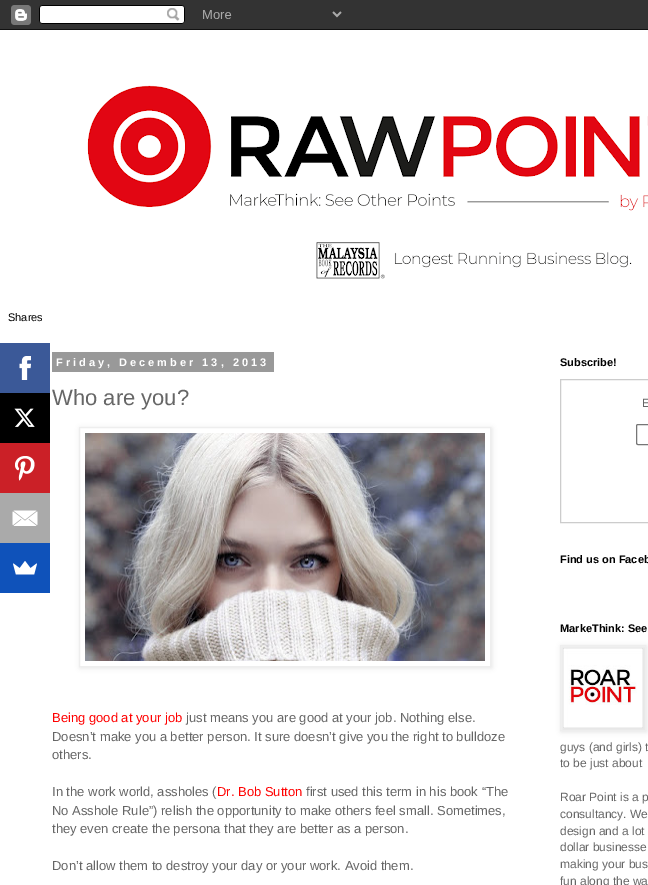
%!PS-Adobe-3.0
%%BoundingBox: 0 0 648 885
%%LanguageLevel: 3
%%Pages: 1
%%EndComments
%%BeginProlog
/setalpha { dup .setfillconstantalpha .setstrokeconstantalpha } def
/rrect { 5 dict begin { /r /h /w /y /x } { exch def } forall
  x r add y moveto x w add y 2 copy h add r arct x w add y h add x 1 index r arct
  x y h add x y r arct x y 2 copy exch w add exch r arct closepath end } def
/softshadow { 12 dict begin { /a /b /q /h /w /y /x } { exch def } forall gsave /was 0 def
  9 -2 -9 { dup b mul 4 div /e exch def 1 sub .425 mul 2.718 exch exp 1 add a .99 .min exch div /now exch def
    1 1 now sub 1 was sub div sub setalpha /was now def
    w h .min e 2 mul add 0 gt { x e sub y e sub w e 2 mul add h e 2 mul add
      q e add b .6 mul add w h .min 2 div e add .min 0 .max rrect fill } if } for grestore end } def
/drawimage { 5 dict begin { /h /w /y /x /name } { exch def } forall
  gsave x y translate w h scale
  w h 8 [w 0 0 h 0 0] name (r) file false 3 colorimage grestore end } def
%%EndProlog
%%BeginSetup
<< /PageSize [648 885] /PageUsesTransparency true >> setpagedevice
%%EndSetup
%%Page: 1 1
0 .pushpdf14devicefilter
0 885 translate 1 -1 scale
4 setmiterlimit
1 setgray
0 0 648 885 rectfill
(images/1.raw) 0 0 648 30 drawimage
0.231 0.349 0.596 setrgbcolor
0 343 50 50 rectfill
(images/2.raw) 19 356 12 24 drawimage
0 setgray
0 393 50 50 rectfill
(images/3.raw) 14 408 21 19 drawimage
0.796 0.125 0.153 setrgbcolor
0 443 50 50 rectfill
(images/4.raw) 15 456 20 25 drawimage
0.667 setgray
0 493 50 50 rectfill
(images/5.raw) 12 510 26 16 drawimage
0.059 0.322 0.729 setrgbcolor
0 543 50 50 rectfill
(images/6.raw) 13 561 24 14 drawimage
(images/7.raw) 87 85 561 194 drawimage
0.6 setgray
52 352 222 20 rectfill
gsave
newpath 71 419 moveto 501 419 lineto 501 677 lineto 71 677 lineto closepath 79 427 moveto 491 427 lineto 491 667 lineto 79 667 lineto closepath eoclip newpath
0 setgray
80 428 412 240 0 2.5 0.1 softshadow
grestore
0.933 setgray
79.5 427.5 411 239 rectstroke
(images/8.raw) 85 433 400 228 drawimage
0.8 setgray
560.5 379.5 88 143 rectstroke
0.463 setgray
636.5 424.5 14 20 1.5 rrect stroke
0 setgray
561 646 86 86 0 2.5 0.1 softshadow
0.933 setgray
560.5 645.5 85 85 rectstroke
(images/9.raw) 563 648 80 80 drawimage
/LiberationSans-Regular [11 0 0 -11 0 0] selectfont
0 setgray
8 321 moveto (Shares) show
/LiberationSans-Bold [11 0 0 -11 0 0] selectfont
1 setgray
56 366 moveto 3 0 (Friday, December 13, 2013) ashow
/LiberationSans-Regular [22 0 0 -22 0 0] selectfont
0.4 setgray
52 405 moveto (Who are you?) show
/LiberationSans-Regular [13 0 0 -13 0 0] selectfont
1 0 0 setrgbcolor
52 722 moveto (Being good at your job) show
0.4 setgray
186 722 moveto (just means you are good at your job. Nothing else.) show
52 741 moveto (Doesn’t make you a better person. It sure doesn’t give you the right to bulldoze) show
52 759 moveto (others.) show
52 796 moveto (In the work world, assholes \() show
1 0 0 setrgbcolor
217 796 moveto (Dr. Bob Sutton) show
0.4 setgray
306 796 moveto (first used this term in his book “The) show
52 815 moveto (No Asshole Rule”\) relish the opportunity to make others feel small. Sometimes,) show
52 833 moveto (they even create the persona that they are better as a person.) show
52 870 moveto (Don’t allow them to destroy your day or your work. Avoid them.) show
/LiberationSans-Bold [11 0 0 -11 0 0] selectfont
0 setgray
560 366 moveto (Subscribe!) show
/LiberationSans-Regular [12 0 0 -12 0 0] selectfont
0.4 setgray
642 407 moveto (E) show
/LiberationSans-Bold [11 0 0 -11 0 0] selectfont
0 setgray
560 563 moveto (Find us on Faceb) show
560 632 moveto (MarkeThink: See) show
/LiberationSans-Regular [12 0 0 -12 0 0] selectfont
0.4 setgray
560 751 moveto (guys \(and girls\) t) show
560 767 moveto (to be just about) show
560 801 moveto (Roar Point is a p) show
560 818 moveto (consultancy. We) show
560 835 moveto (design and a lot) show
560 851 moveto (dollar businesse) show
560 868 moveto (making your bus) show
560 885 moveto (fun along the wa) show
.poppdf14devicefilter showpage
%%EOF
